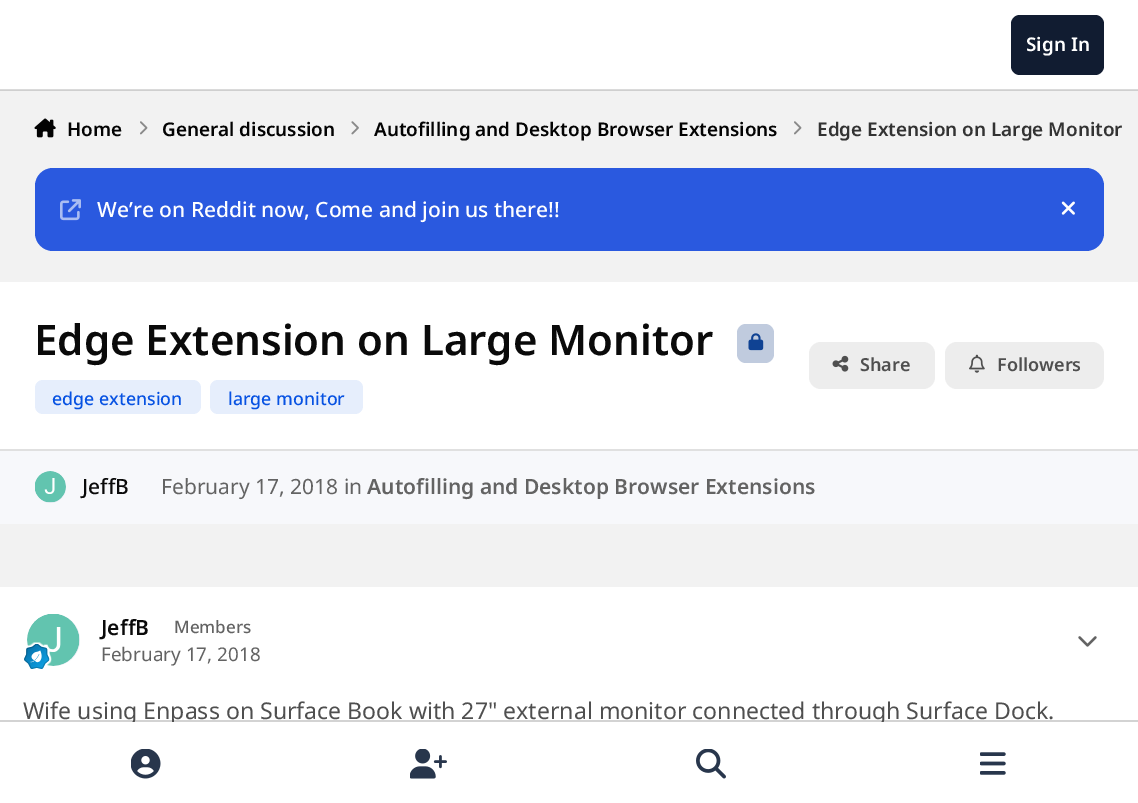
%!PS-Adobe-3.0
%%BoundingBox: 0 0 1138 803
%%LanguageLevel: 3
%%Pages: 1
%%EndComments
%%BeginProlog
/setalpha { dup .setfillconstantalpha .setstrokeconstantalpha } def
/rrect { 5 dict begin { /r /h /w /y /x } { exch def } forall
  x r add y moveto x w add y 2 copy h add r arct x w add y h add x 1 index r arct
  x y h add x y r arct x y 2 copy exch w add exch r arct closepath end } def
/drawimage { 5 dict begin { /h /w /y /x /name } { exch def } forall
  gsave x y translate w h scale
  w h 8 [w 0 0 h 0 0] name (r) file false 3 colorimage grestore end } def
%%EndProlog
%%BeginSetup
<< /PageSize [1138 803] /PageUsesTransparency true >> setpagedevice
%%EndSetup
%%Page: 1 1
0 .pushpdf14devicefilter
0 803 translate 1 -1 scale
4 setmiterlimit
0.949 setgray
0 0 1138 803 rectfill
0.812 setgray
0 90 1138 1 rectfill
1 setgray
0 0 1138 89 rectfill
0.855 setgray
0 89 1138 1 rectfill
0.067 0.11 0.192 setrgbcolor
1011 15 93 60 9 rrect fill
(images/1.raw) 34 118 22 20 drawimage
(images/2.raw) 140 121 8 14 drawimage
(images/3.raw) 351 121 8 14 drawimage
(images/2.raw) 794 121 8 14 drawimage
0.165 0.349 0.875 setrgbcolor
35 168 1069 83 18 rrect fill
(images/4.raw) 60 199 21 22 drawimage
(images/5.raw) 1061 201 14 14 drawimage
1 setgray
0 282 1138 167 rectfill
0.753 0.796 0.871 setrgbcolor
737 324 37 39 9 rrect fill
(images/6.raw) 748 333 16 18 drawimage
0.902 0.933 0.988 setrgbcolor
35 380 166 34 8 rrect fill
210 380 153 34 8 rrect fill
0.929 setgray
809 342 126 47 12 rrect fill
(images/7.raw) 832 355 17 17 drawimage
945 342 159 47 12 rrect fill
(images/8.raw) 969 354 16 19 drawimage
0.969 0.973 0.984 setrgbcolor
0 451 1138 73 rectfill
0.878 setgray
0 449 1138 2 rectfill
0.898 0.918 0.949 setrgbcolor
35 471 31 32 15.5 rrect fill
(images/9.raw) 35 471 31 32 drawimage
1 setgray
0 587 1138 135 rectfill
0.898 0.918 0.949 setrgbcolor
27 614 53 52 26 rrect fill
(images/10.raw) 27 614 53 52 drawimage
(images/11.raw) 24 642 28 27 drawimage
(images/12.raw) 1078 636 19 11 drawimage
/NotoSans-SemiBold [18.9 0 0 -18.9 0 0] selectfont
1 setgray
1026 51 moveto (Sign In) show
0.012 setgray
67 136 moveto (Home) show
162 136 moveto (General discussion) show
374 136 moveto (Autofilling and Desktop Browser Extensions) show
0.2 setgray
817 136 moveto (Edge Extension on Large Monitor) show
/NotoSans-Medium [21 0 0 -21 0 0] selectfont
1 setgray
97 217 moveto (We’re on Reddit now, Come and join us there!!) show
/NotoSans-SemiBold [42 0 0 -42 0 0] selectfont
0.039 setgray
34 355 moveto (Edge Extension on Large Monitor) show
/NotoSans-Medium [17.75 0 0 -17.75 0 0] selectfont
0.027 0.322 0.886 setrgbcolor
52 405 moveto (edge extension) show
228 405 moveto (large monitor) show
/NotoSans-SemiBold [18 0 0 -18 0 0] selectfont
0.31 setgray
860 371 moveto (Share) show
997 371 moveto (Followers) show
/NotoSans-Medium [21 0 0 -21 0 0] selectfont
0.039 setgray
82 494 moveto (JeffB) show
/NotoSans-Regular [21 0 0 -21 0 0] selectfont
0.388 setgray
161 494 moveto (February 17, 2018 in) show
/NotoSans-SemiBold [21 0 0 -21 0 0] selectfont
367 494 moveto (Autofilling and Desktop Browser Extensions) show
0.039 setgray
101 635 moveto (JeffB) show
/NotoSans-Medium [17 0 0 -17 0 0] selectfont
0.388 setgray
174 633 moveto (Members) show
/NotoSans-Regular [18.9 0 0 -18.9 0 0] selectfont
101 661 moveto (February 17, 2018) show
/NotoSans-Regular [23.1 0 0 -23.1 0 0] selectfont
0.31 setgray
23 719 moveto (Wife using Enpass on Surface Book with 27" external monitor connected through Surface Dock.) show
0.25 setalpha
newpath 0 720 moveto 0 722 lineto 1138 722 lineto 1138 803 lineto 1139 803 lineto 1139 720 lineto closepath fill
1 setalpha
1 setgray
0 722 1138 81 rectfill
(images/13.raw) 131 749 30 30 drawimage
(images/14.raw) 410 749 37 30 drawimage
(images/15.raw) 696 749 30 30 drawimage
(images/16.raw) 980 752 26 23 drawimage
.poppdf14devicefilter showpage
%%EOF
